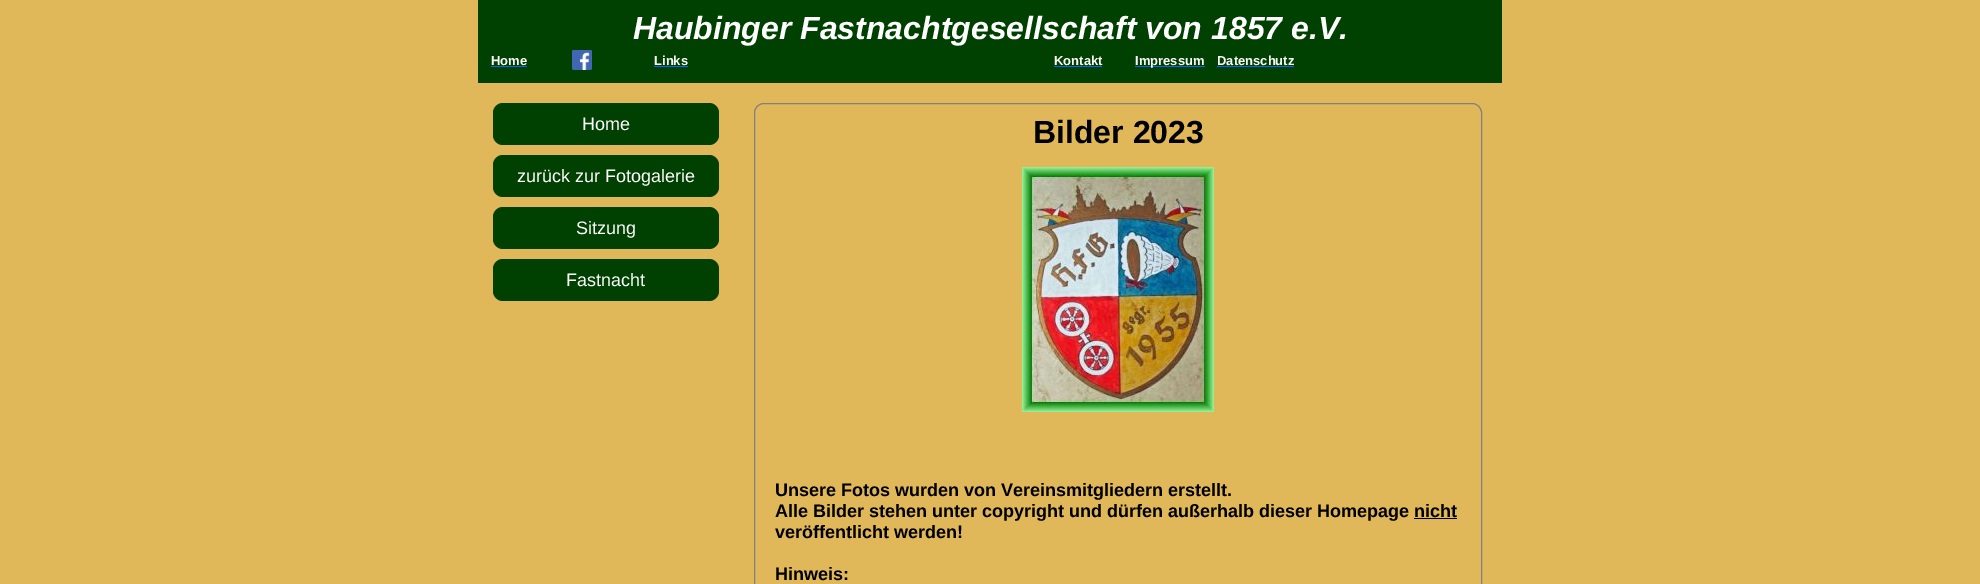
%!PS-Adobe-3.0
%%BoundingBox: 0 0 1980 584
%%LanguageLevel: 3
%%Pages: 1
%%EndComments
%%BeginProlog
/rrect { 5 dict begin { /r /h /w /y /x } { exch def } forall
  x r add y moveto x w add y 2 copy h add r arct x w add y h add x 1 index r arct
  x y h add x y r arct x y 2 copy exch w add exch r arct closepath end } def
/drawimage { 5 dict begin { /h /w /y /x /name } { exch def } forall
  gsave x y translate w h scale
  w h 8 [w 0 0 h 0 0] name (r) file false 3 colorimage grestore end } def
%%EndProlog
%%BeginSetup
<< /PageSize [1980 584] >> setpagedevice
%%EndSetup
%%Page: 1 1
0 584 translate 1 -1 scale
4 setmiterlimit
0.878 0.722 0.353 setrgbcolor
0 0 1980 584 rectfill
0 0.251 0 setrgbcolor
478 0 1024 83 rectfill
0 0.4 1 setrgbcolor
491 66 36 1 rectfill
(images/1.raw) 572 50 20 20 drawimage
654 66 34 1 rectfill
1054 66 48 1 rectfill
1135 66 70 1 rectfill
1217 66 77 1 rectfill
0 0.251 0 setrgbcolor
493 103 226 42 10 rrect fill
493 155 226 42 10 rrect fill
493 207 226 42 10 rrect fill
493 259 226 42 10 rrect fill
0.502 setgray
754.5 103.5 727 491 9.5 rrect stroke
(images/2.raw) 1022 167 192 245 drawimage
0 setgray
1414 518 43 1 rectfill
/LiberationSans-BoldItalic [32 0 0 -32 0 0] selectfont
1 setgray
633 39 moveto (Haubinger Fastnachtgesellschaft von 1857 e.V.) show
/LiberationSans-Bold [13 0 0 -13 0 0] selectfont
491 65 moveto (Home) show
654 65 moveto (Links) show
1054 65 moveto (Kontakt) show
1135 65 moveto (Impressum) show
1217 65 moveto (Datenschutz) show
/LiberationSans-Regular [18 0 0 -18 0 0] selectfont
582 130 moveto (Home) show
517 182 moveto (zurück zur Fotogalerie) show
576 234 moveto (Sitzung) show
566 286 moveto (Fastnacht) show
/LiberationSans-Bold [32 0 0 -32 0 0] selectfont
0 setgray
1033 143 moveto (Bilder 2023) show
/LiberationSans-Bold [18 0 0 -18 0 0] selectfont
775 496 moveto (Unsere Fotos wurden von Vereinsmitgliedern erstellt.) show
775 517 moveto (Alle Bilder stehen unter copyright und dürfen außerhalb dieser Homepage nicht) show
775 538 moveto (veröffentlicht werden!) show
775 580 moveto (Hinweis:) show
showpage
%%EOF
